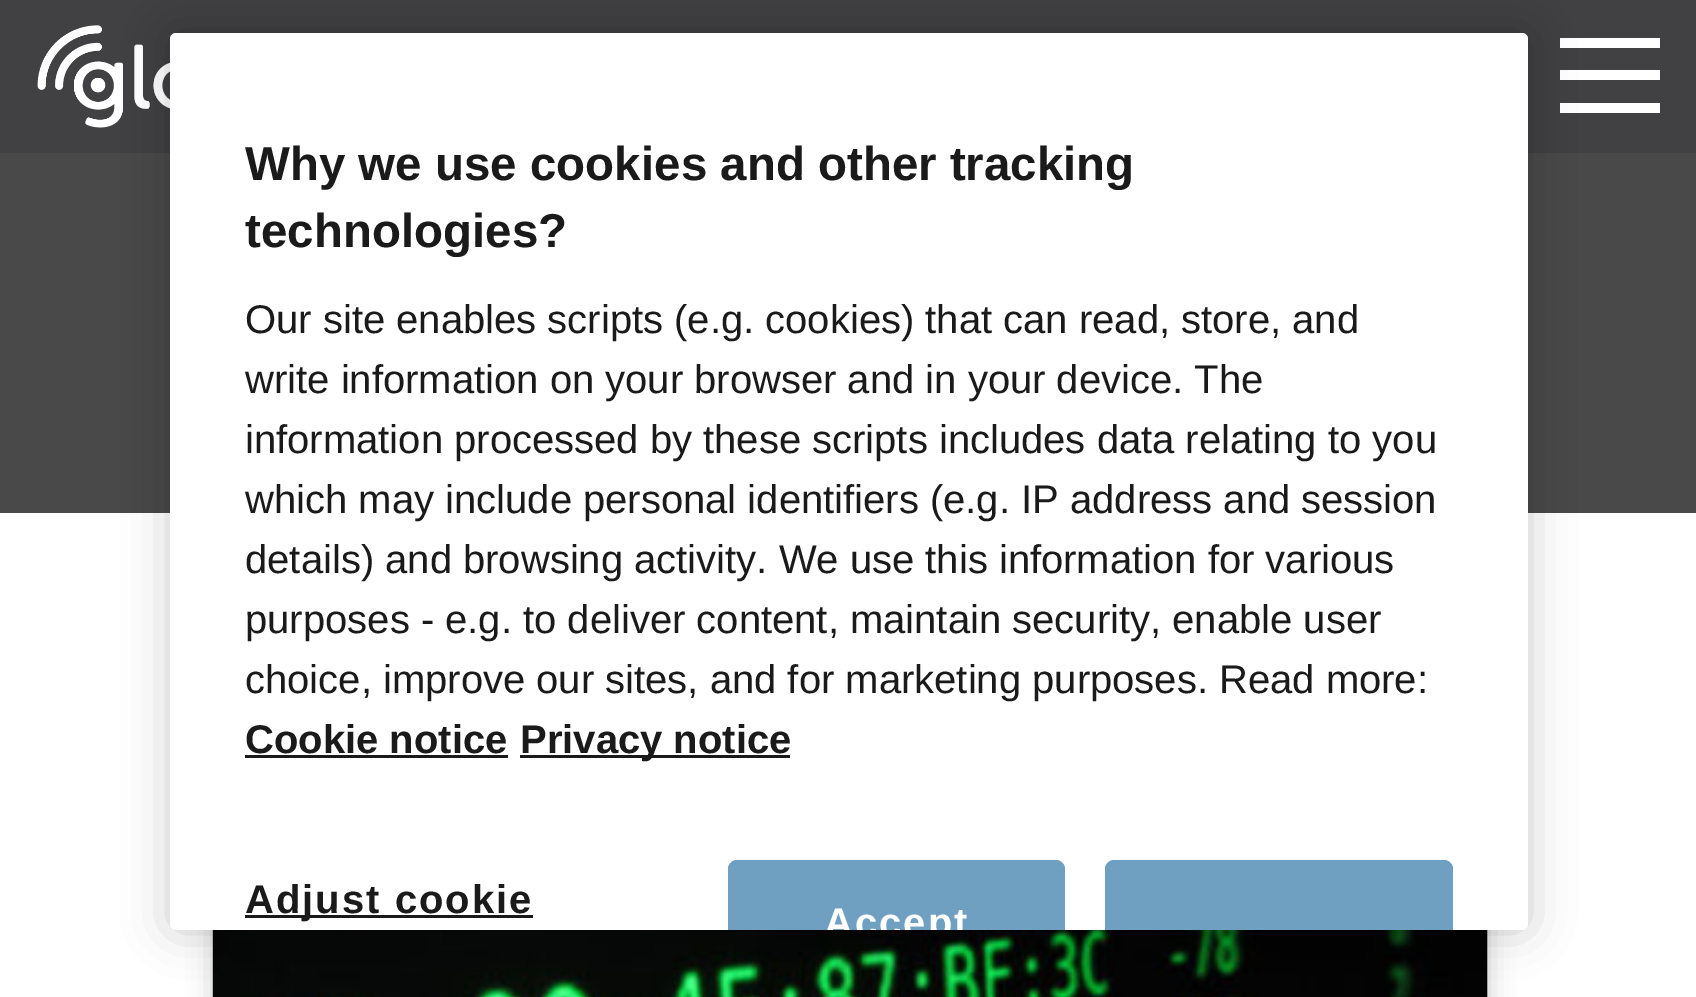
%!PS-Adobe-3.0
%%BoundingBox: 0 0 1696 997
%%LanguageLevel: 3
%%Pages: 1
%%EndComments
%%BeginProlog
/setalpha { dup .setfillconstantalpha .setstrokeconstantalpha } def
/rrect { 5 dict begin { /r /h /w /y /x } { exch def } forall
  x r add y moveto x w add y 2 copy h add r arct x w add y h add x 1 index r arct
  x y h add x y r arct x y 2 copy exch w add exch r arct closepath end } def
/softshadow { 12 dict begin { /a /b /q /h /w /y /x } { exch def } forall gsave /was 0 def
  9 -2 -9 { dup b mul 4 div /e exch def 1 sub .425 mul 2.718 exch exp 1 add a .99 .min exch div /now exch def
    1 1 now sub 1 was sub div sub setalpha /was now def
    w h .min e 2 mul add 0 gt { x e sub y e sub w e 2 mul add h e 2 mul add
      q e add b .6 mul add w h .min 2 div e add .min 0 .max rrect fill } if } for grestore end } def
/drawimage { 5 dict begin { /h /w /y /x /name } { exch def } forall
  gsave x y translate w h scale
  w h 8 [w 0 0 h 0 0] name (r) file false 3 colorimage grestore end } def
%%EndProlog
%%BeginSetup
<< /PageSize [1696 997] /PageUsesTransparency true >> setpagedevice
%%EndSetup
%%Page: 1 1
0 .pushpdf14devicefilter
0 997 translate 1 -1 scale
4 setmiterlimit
1 setgray
0 0 1696 997 rectfill
0.255 0.255 0.263 setrgbcolor
0 0 1696 153 rectfill
(images/1.raw) 37 25 133 103 drawimage
1 setgray
1560 38 100 10 rectfill
1560 70 100 10 rectfill
1560 103 100 10 rectfill
0.286 0.286 0.29 setrgbcolor
0 153 1696 360 rectfill
0 setgray
213 648 1275 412 25 12.5 0.21 softshadow
0.847 setgray
1487 930 1 67 rectfill
(images/2.raw) 212 930 1276 67 drawimage
0 setgray
170 33 1358 897 6 22.5 0.2 softshadow
1 setgray
170 33 1358 897 6 rrect fill
0.102 setgray
245 755 263 3 rectfill
520 755 270 3 rectfill
245 915 288 3 rectfill
0.435 0.624 0.757 setrgbcolor
newpath 738 860 moveto 1055 860 lineto 1060.5 860 1065 864.5 1065 870 curveto 1065 930 lineto 728 930 lineto 728 870 lineto 728 864.5 732.5 860 738 860 curveto closepath fill
newpath 738 860 moveto 732 860 728 864 728 870 curveto 728 930 lineto 731 930 lineto 731 870 lineto 731 866 734 863 738 863 curveto 1055 863 lineto 1059 863 1062 866 1062 870 curveto 1062 930 lineto 1065 930 lineto 1065 870 lineto 1065 864 1061 860 1055 860 curveto closepath fill
newpath 1115 860 moveto 1443 860 lineto 1448.5 860 1453 864.5 1453 870 curveto 1453 930 lineto 1105 930 lineto 1105 870 lineto 1105 864.5 1109.5 860 1115 860 curveto closepath fill
newpath 1115 860 moveto 1109 860 1105 864 1105 870 curveto 1105 930 lineto 1108 930 lineto 1108 870 lineto 1108 866 1111 863 1115 863 curveto 1443 863 lineto 1447 863 1450 866 1450 870 curveto 1450 930 lineto 1453 930 lineto 1453 870 lineto 1453 864 1449 860 1443 860 curveto closepath fill
/LiberationSans-Bold [47.5 0 0 -47.5 0 0] selectfont
0.102 setgray
245 180 moveto (Why we use cookies and other tracking) show
245 247 moveto (technologies?) show
/LiberationSans-Regular [40 0 0 -40 0 0] selectfont
245 333 moveto (Our site enables scripts \(e.g. cookies\) that can read, store, and) show
245 393 moveto (write information on your browser and in your device. The) show
245 453 moveto (information processed by these scripts includes data relating to you) show
245 513 moveto (which may include personal identifiers \(e.g. IP address and session) show
245 573 moveto (details\) and browsing activity. We use this information for various) show
245 633 moveto (purposes - e.g. to deliver content, maintain security, enable user) show
245 693 moveto (choice, improve our sites, and for marketing purposes. Read more:) show
/LiberationSans-Bold [40 0 0 -40 0 0] selectfont
245 753 moveto (Cookie notice) show
520 753 moveto (Privacy notice) show
245 913 moveto 2 0 (Adjust cookie) ashow
gsave
170 33 1358 897 6 rrect clip newpath
1 setgray
824 936 moveto 2 0 (Accept) ashow
grestore
.poppdf14devicefilter showpage
%%EOF
